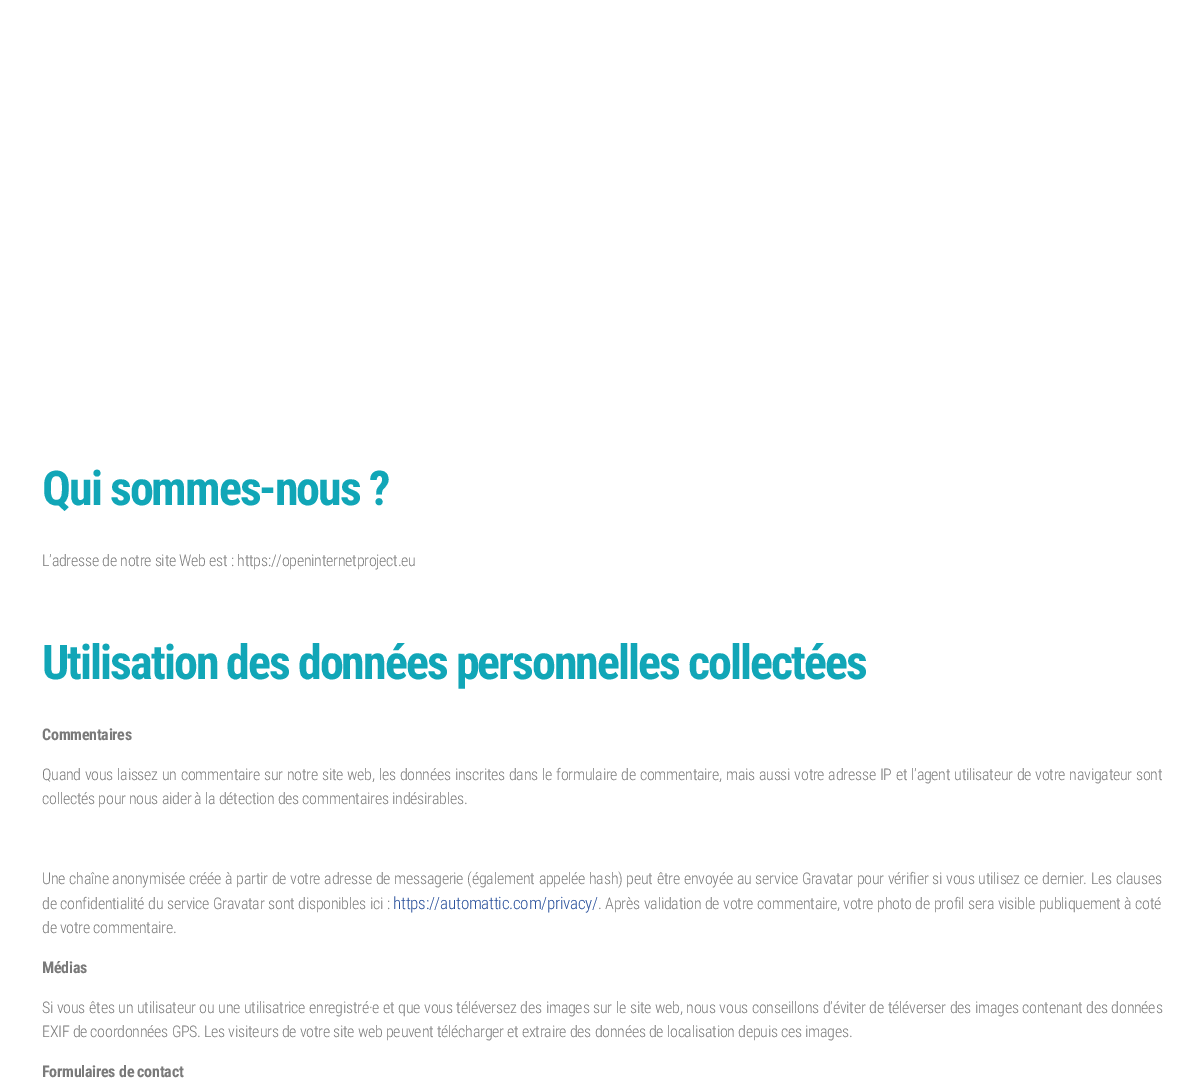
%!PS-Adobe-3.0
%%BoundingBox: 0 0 1203 1086
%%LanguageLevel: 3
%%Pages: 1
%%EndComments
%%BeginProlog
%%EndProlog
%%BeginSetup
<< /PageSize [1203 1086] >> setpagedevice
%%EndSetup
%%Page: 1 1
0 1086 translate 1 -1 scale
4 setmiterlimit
1 setgray
0 0 1203 1086 rectfill
/RobotoCondensed-Bold [48 0 0 -48 0 0] selectfont
0.067 0.651 0.718 setrgbcolor
42 505 moveto -2 0 (Qui sommes-nous ?) ashow
/RobotoCondensed-Light [16 0 0 -16 0 0] selectfont
0.478 setgray
42 566 moveto -0.27 0 (L’adresse de notre site Web est : https://openinternetproject.eu) ashow
/RobotoCondensed-Bold [48 0 0 -48 0 0] selectfont
0.067 0.651 0.718 setrgbcolor
42 679 moveto -2 0 (Utilisation des données personnelles collectées) ashow
/RobotoCondensed-Bold [16 0 0 -16 0 0] selectfont
0.478 setgray
42 740 moveto -0.27 0 (Commentaires) ashow
/RobotoCondensed-Light [16 0 0 -16 0 0] selectfont
42 780 moveto 0.6 0 32 -0.27 0 (Quand vous laissez un commentaire sur notre site web, les données inscrites dans le formulaire de commentaire, mais aussi votre adresse IP et l’agent utilisateur de votre navigateur sont) awidthshow
42 804 moveto -0.27 0 (collectés pour nous aider à la détection des commentaires indésirables.) ashow
42 884 moveto 0.6 0 32 -0.27 0 (Une chaîne anonymisée créée à partir de votre adresse de messagerie \(également appelée hash\) peut être envoyée au service Gravatar pour vérifier si vous utilisez ce dernier. Les clauses) awidthshow
42 909 moveto 0.5 0 32 -0.27 0 (de confidentialité du service Gravatar sont disponibles ici :) awidthshow
/RobotoCondensed-Light [17 0 0 -17 0 0] selectfont
0.165 0.318 0.612 setrgbcolor
393 909 moveto -0.27 0 (https://automattic.com/privacy/) ashow
/RobotoCondensed-Light [16 0 0 -16 0 0] selectfont
0.478 setgray
598 909 moveto 0.5 0 32 -0.27 0 (. Après validation de votre commentaire, votre photo de profil sera visible publiquement à coté) awidthshow
42 933 moveto -0.27 0 (de votre commentaire.) ashow
/RobotoCondensed-Bold [16 0 0 -16 0 0] selectfont
42 973 moveto -0.27 0 (Médias) ashow
/RobotoCondensed-Light [16 0 0 -16 0 0] selectfont
42 1013 moveto 0.45 0 32 -0.27 0 (Si vous êtes un utilisateur ou une utilisatrice enregistré·e et que vous téléversez des images sur le site web, nous vous conseillons d’éviter de téléverser des images contenant des données) awidthshow
42 1037 moveto -0.27 0 (EXIF de coordonnées GPS. Les visiteurs de votre site web peuvent télécharger et extraire des données de localisation depuis ces images.) ashow
/RobotoCondensed-Bold [16 0 0 -16 0 0] selectfont
42 1077 moveto -0.27 0 (Formulaires de contact) ashow
showpage
%%EOF
